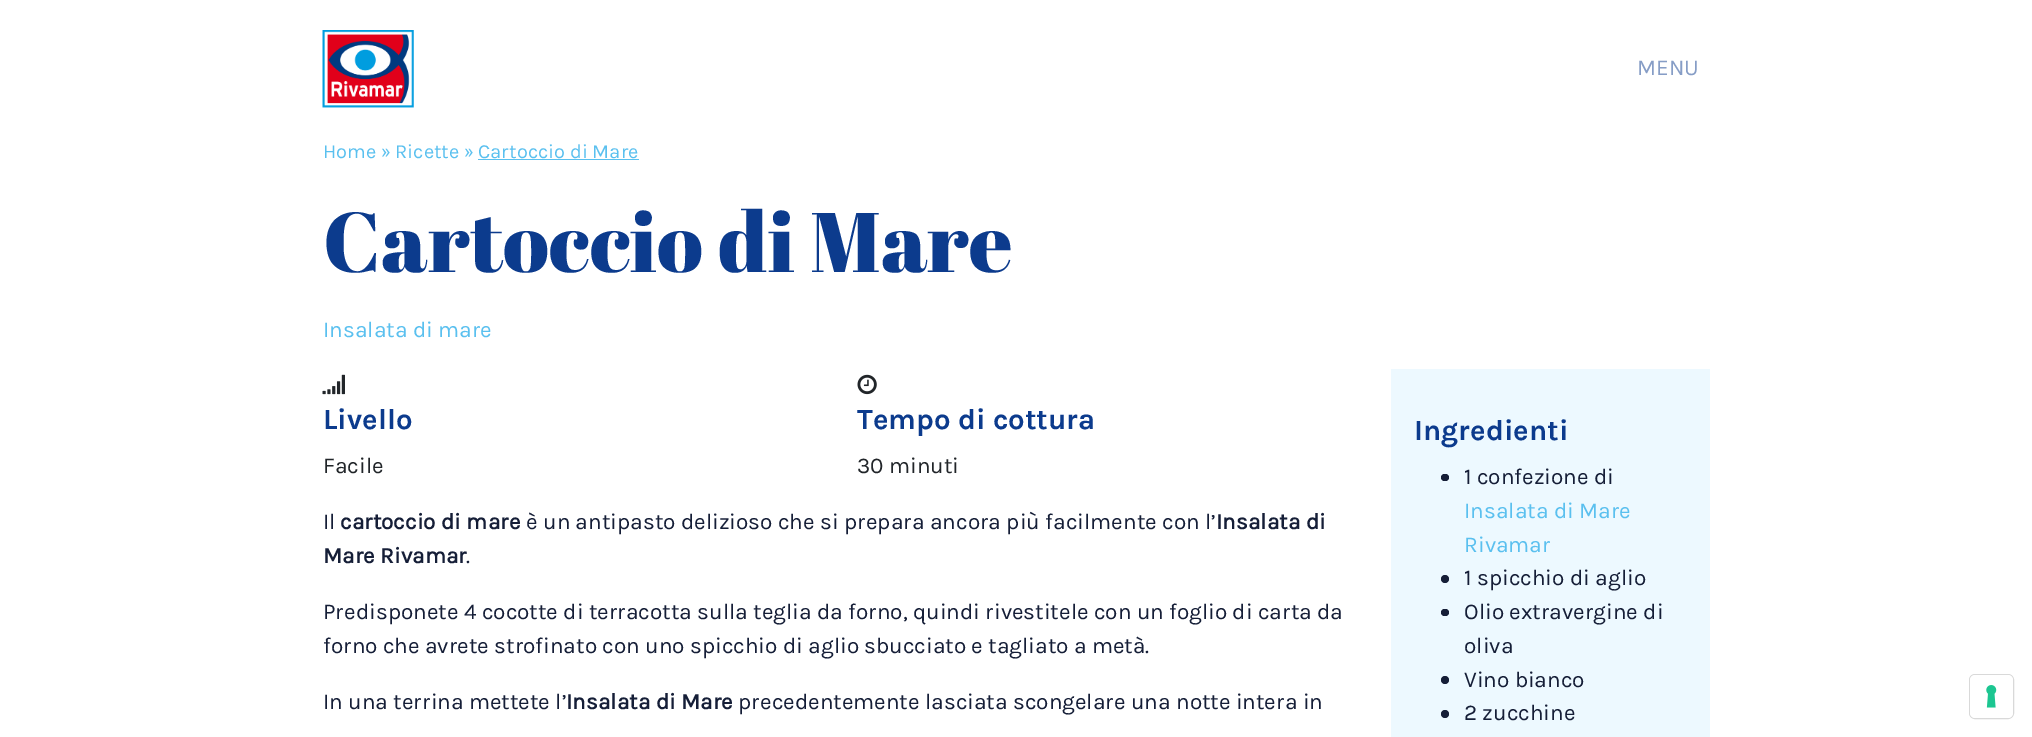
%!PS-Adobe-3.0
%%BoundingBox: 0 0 2032 737
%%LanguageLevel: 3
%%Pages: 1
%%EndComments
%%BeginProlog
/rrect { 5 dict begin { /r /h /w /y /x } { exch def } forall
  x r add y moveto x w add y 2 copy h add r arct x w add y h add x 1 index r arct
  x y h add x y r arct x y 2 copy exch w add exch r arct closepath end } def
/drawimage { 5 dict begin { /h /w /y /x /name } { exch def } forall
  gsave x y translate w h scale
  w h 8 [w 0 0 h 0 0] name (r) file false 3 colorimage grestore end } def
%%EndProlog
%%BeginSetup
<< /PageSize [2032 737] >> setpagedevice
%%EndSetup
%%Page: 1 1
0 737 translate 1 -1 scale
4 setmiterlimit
1 setgray
0 0 2032 737 rectfill
(images/1.raw) 322 30 92 78 drawimage
0.353 0.753 0.937 setrgbcolor
478 159 161 1 rectfill
(images/2.raw) 322 374 23 21 drawimage
(images/3.raw) 857 374 20 21 drawimage
0.929 0.976 1 setrgbcolor
1391 369 319 368 rectfill
0.082 0.118 0.216 setrgbcolor
1441 474 8 7 3.5 rrect fill
newpath 1445 579 4 0 360 arc closepath fill
1441 609 8 7 3.5 rrect fill
newpath 1445 680 4 0 360 arc closepath fill
newpath 1445 714 4 0 360 arc closepath fill
0.851 setgray
1969.5 674.5 44 44 5.5 rrect stroke
1 setgray
1970 675 43 43 5 rrect fill
(images/4.raw) 1986 685 11 23 drawimage
/Karla-Regular [22.5 0 0 -22.5 0 0] selectfont
0.525 0.616 0.776 setrgbcolor
1637 75 moveto (MENU) show
/Karla-Regular [20 0 0 -20 0 0] selectfont
0.353 0.753 0.937 setrgbcolor
323 158 moveto (Home) show
/Roboto-Regular [20 0 0 -20 0 0] selectfont
381 158 moveto (») show
/Karla-Regular [20 0 0 -20 0 0] selectfont
395 158 moveto (Ricette) show
/Roboto-Regular [20 0 0 -20 0 0] selectfont
464 158 moveto (») show
/Karla-Regular [20 0 0 -20 0 0] selectfont
478 158 moveto (Cartoccio di Mare) show
/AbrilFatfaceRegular-Regular [84.5 0 0 -84.5 0 0] selectfont
0.047 0.231 0.553 setrgbcolor
323 272 moveto (Cartoccio di Mare) show
/Karla-Regular [22.5 0 0 -22.5 0 0] selectfont
0.353 0.753 0.937 setrgbcolor
323 337 moveto (Insalata di mare) show
/Karla-Bold [29.25 0 0 -29.25 0 0] selectfont
0.047 0.231 0.553 setrgbcolor
323 429 moveto (Livello) show
/Karla-Regular [22.5 0 0 -22.5 0 0] selectfont
0.129 0.145 0.161 setrgbcolor
323 473 moveto (Facile) show
/Karla-Bold [29.25 0 0 -29.25 0 0] selectfont
0.047 0.231 0.553 setrgbcolor
857 429 moveto (Tempo di cottura) show
/Karla-Regular [22.5 0 0 -22.5 0 0] selectfont
0.129 0.145 0.161 setrgbcolor
857 473 moveto (30 minuti) show
0.082 0.118 0.216 setrgbcolor
323 529 moveto (Il) show
/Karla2-Bold [22.5 0 0 -22.5 0 0] selectfont
340 529 moveto (cartoccio di mare) show
/Karla-Regular [22.5 0 0 -22.5 0 0] selectfont
526 529 moveto (è un antipasto delizioso che si prepara ancora più facilmente con l’) show
/Karla2-Bold [22.5 0 0 -22.5 0 0] selectfont
1216 529 moveto (Insalata di) show
323 563 moveto (Mare Rivamar) show
/Karla-Regular [22.5 0 0 -22.5 0 0] selectfont
466 563 moveto (.) show
323 619 moveto (Predisponete 4 cocotte di terracotta sulla teglia da forno, quindi rivestitele con un foglio di carta da) show
323 653 moveto (forno che avrete strofinato con uno spicchio di aglio sbucciato e tagliato a metà.) show
323 709 moveto (In una terrina mettete l’) show
/Karla2-Bold [22.5 0 0 -22.5 0 0] selectfont
566 709 moveto (Insalata di Mare) show
/Karla-Regular [22.5 0 0 -22.5 0 0] selectfont
738 709 moveto (precedentemente lasciata scongelare una notte intera in) show
/Karla-Bold [29.25 0 0 -29.25 0 0] selectfont
0.047 0.231 0.553 setrgbcolor
1414 440 moveto (Ingredienti) show
/Karla-Regular [22.5 0 0 -22.5 0 0] selectfont
0.082 0.118 0.216 setrgbcolor
1464 484 moveto (1 confezione di) show
0.353 0.753 0.937 setrgbcolor
1464 518 moveto (Insalata di Mare) show
1464 552 moveto (Rivamar) show
0.082 0.118 0.216 setrgbcolor
1464 585 moveto (1 spicchio di aglio) show
1464 619 moveto (Olio extravergine di) show
1464 653 moveto (oliva) show
1464 687 moveto (Vino bianco) show
1464 720 moveto (2 zucchine) show
showpage
%%EOF
